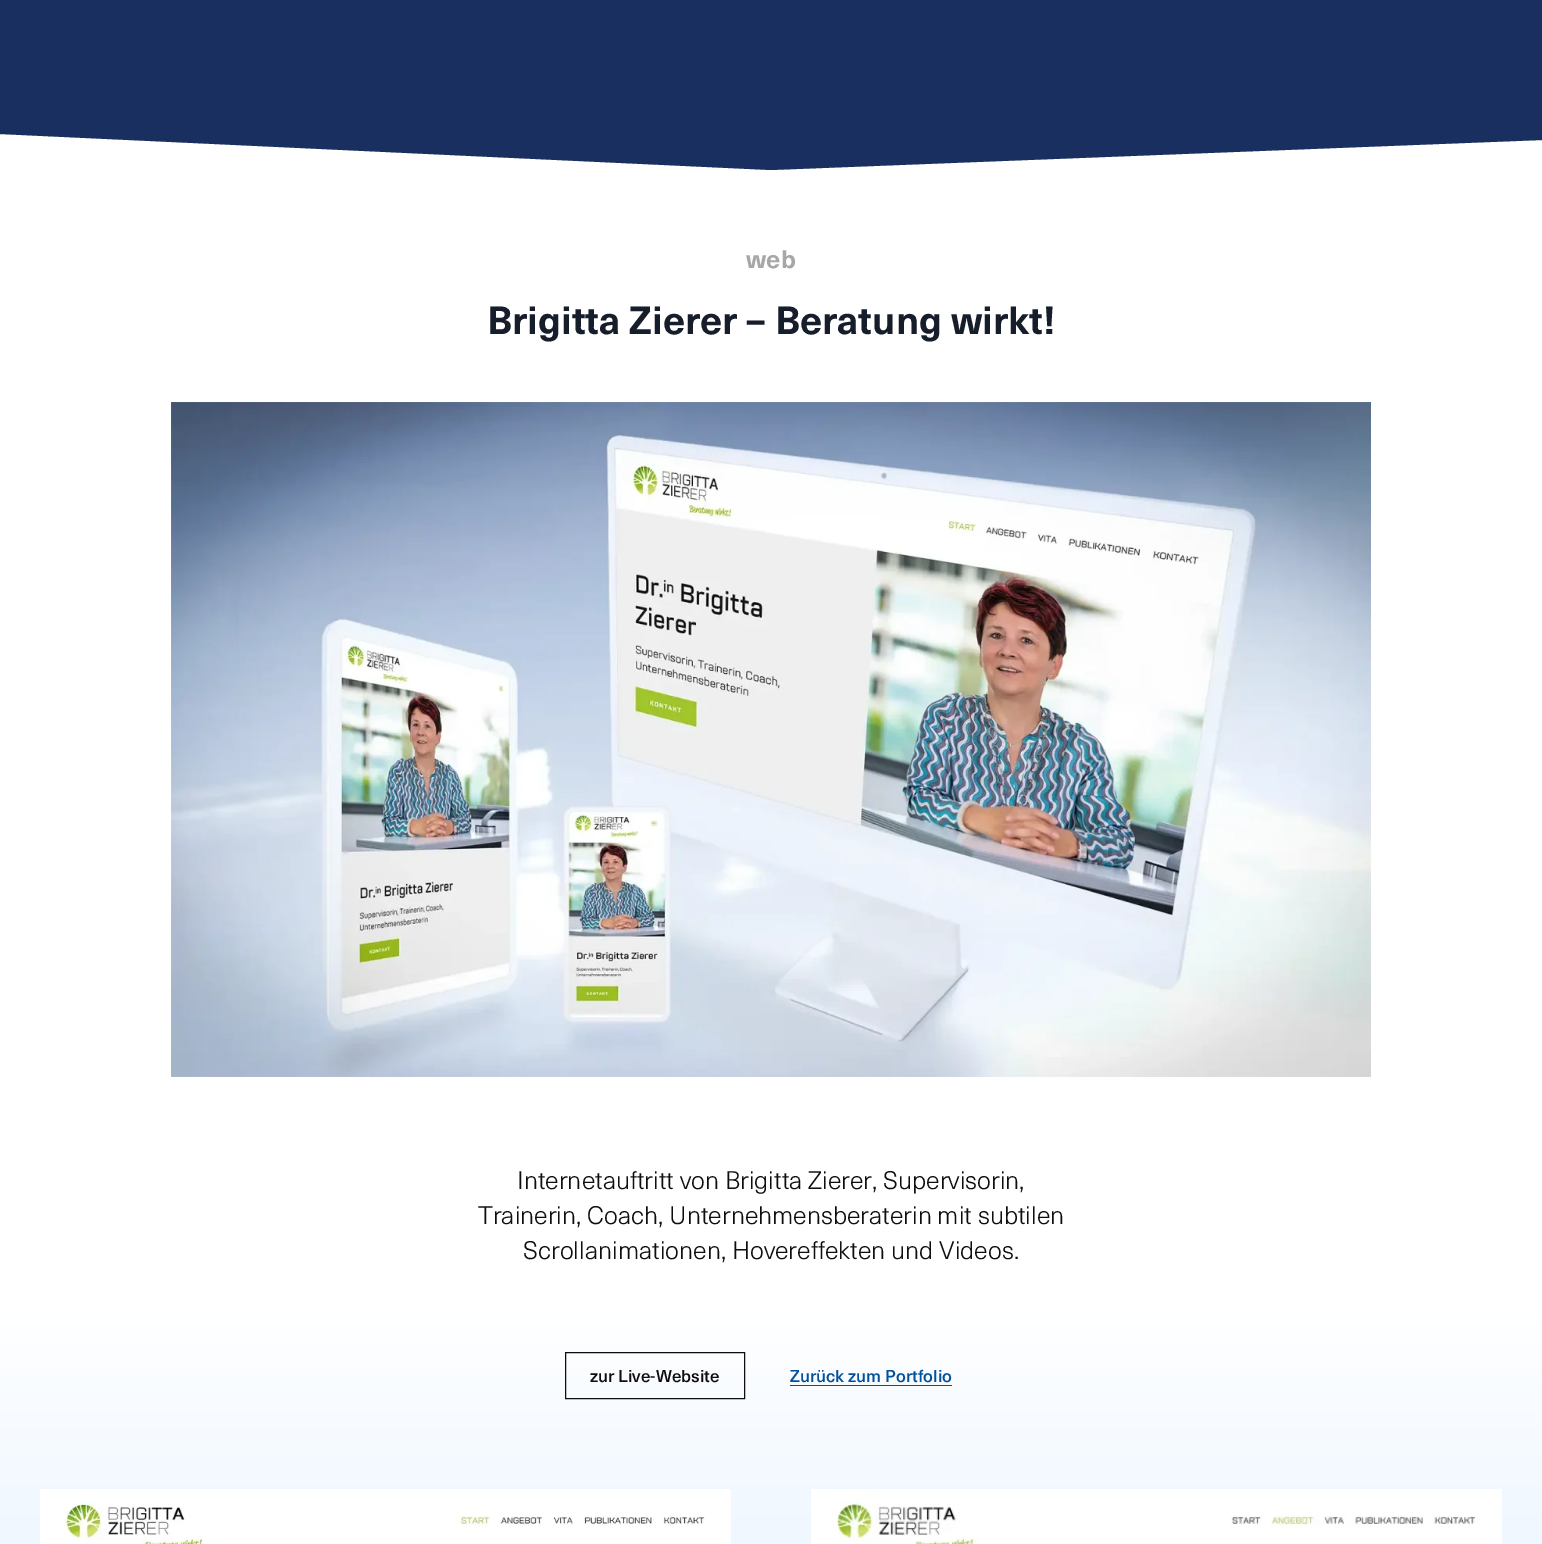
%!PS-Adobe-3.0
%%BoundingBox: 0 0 1542 1544
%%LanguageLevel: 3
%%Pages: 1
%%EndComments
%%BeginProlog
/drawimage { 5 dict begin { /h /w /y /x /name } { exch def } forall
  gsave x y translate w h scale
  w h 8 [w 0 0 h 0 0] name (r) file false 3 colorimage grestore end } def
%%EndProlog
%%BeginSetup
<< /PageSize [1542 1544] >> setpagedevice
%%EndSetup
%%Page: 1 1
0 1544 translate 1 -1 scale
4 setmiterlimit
0.094 0.184 0.373 setrgbcolor
0 0 1542 1544 rectfill
gsave newpath 0 134 moveto 1542 134 lineto 1542 1544 lineto 0 1544 lineto closepath clip newpath
<< /ShadingType 2 /ColorSpace /DeviceRGB /Coords [771 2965 771 110] /Extend [true true] /Function << /FunctionType 3 /Domain [0 1] /Functions [<< /FunctionType 2 /Domain [0 1] /C0 [0.706 0.855 1] /C1 [0.706 0.855 1] /N 1 >> << /FunctionType 2 /Domain [0 1] /C0 [0.706 0.855 1] /C1 [1 1 1] /N 1 >> << /FunctionType 2 /Domain [0 1] /C0 [1 1 1] /C1 [1 1 1] /N 1 >>] /Bounds [0.19 0.58] /Encode [0 1 0 1 0 1] >> >> shfill grestore
newpath 0 134 moveto 771 170 lineto 1542 140 lineto 1542 110 lineto 0 110 lineto closepath fill
(images/1.raw) 171 402 1200 675 drawimage
0.055 setgray
565.5 1352.5 179 46 rectstroke
0 0.318 0.612 setrgbcolor
790 1385 162 1 rectfill
(images/2.raw) 40 1489 691 55 drawimage
(images/3.raw) 811 1489 691 55 drawimage
/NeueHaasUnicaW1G-Bold [25 0 0 -25 0 0] selectfont
0.655 setgray
746 268 moveto (web) show
/NeueHaasUnicaW1G-Bold [38.75 0 0 -38.75 0 0] selectfont
0.086 0.114 0.169 setrgbcolor
487 334 moveto (Brigitta Zierer – Beratung wirkt!) show
/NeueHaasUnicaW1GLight-Light [25 0 0 -25 0 0] selectfont
0.055 setgray
517 1189 moveto (Internetauftritt von Brigitta Zierer, Supervisorin,) show
478 1224 moveto (Trainerin, Coach, Unternehmensberaterin mit subtilen) show
523 1259 moveto (Scrollanimationen, Hovereffekten und Videos.) show
/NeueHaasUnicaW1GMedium-Medium [17 0 0 -17 0 0] selectfont
590 1382 moveto (zur Live-Website) show
0 0.318 0.612 setrgbcolor
790 1382 moveto (Zurück zum Portfolio) show
showpage
%%EOF
